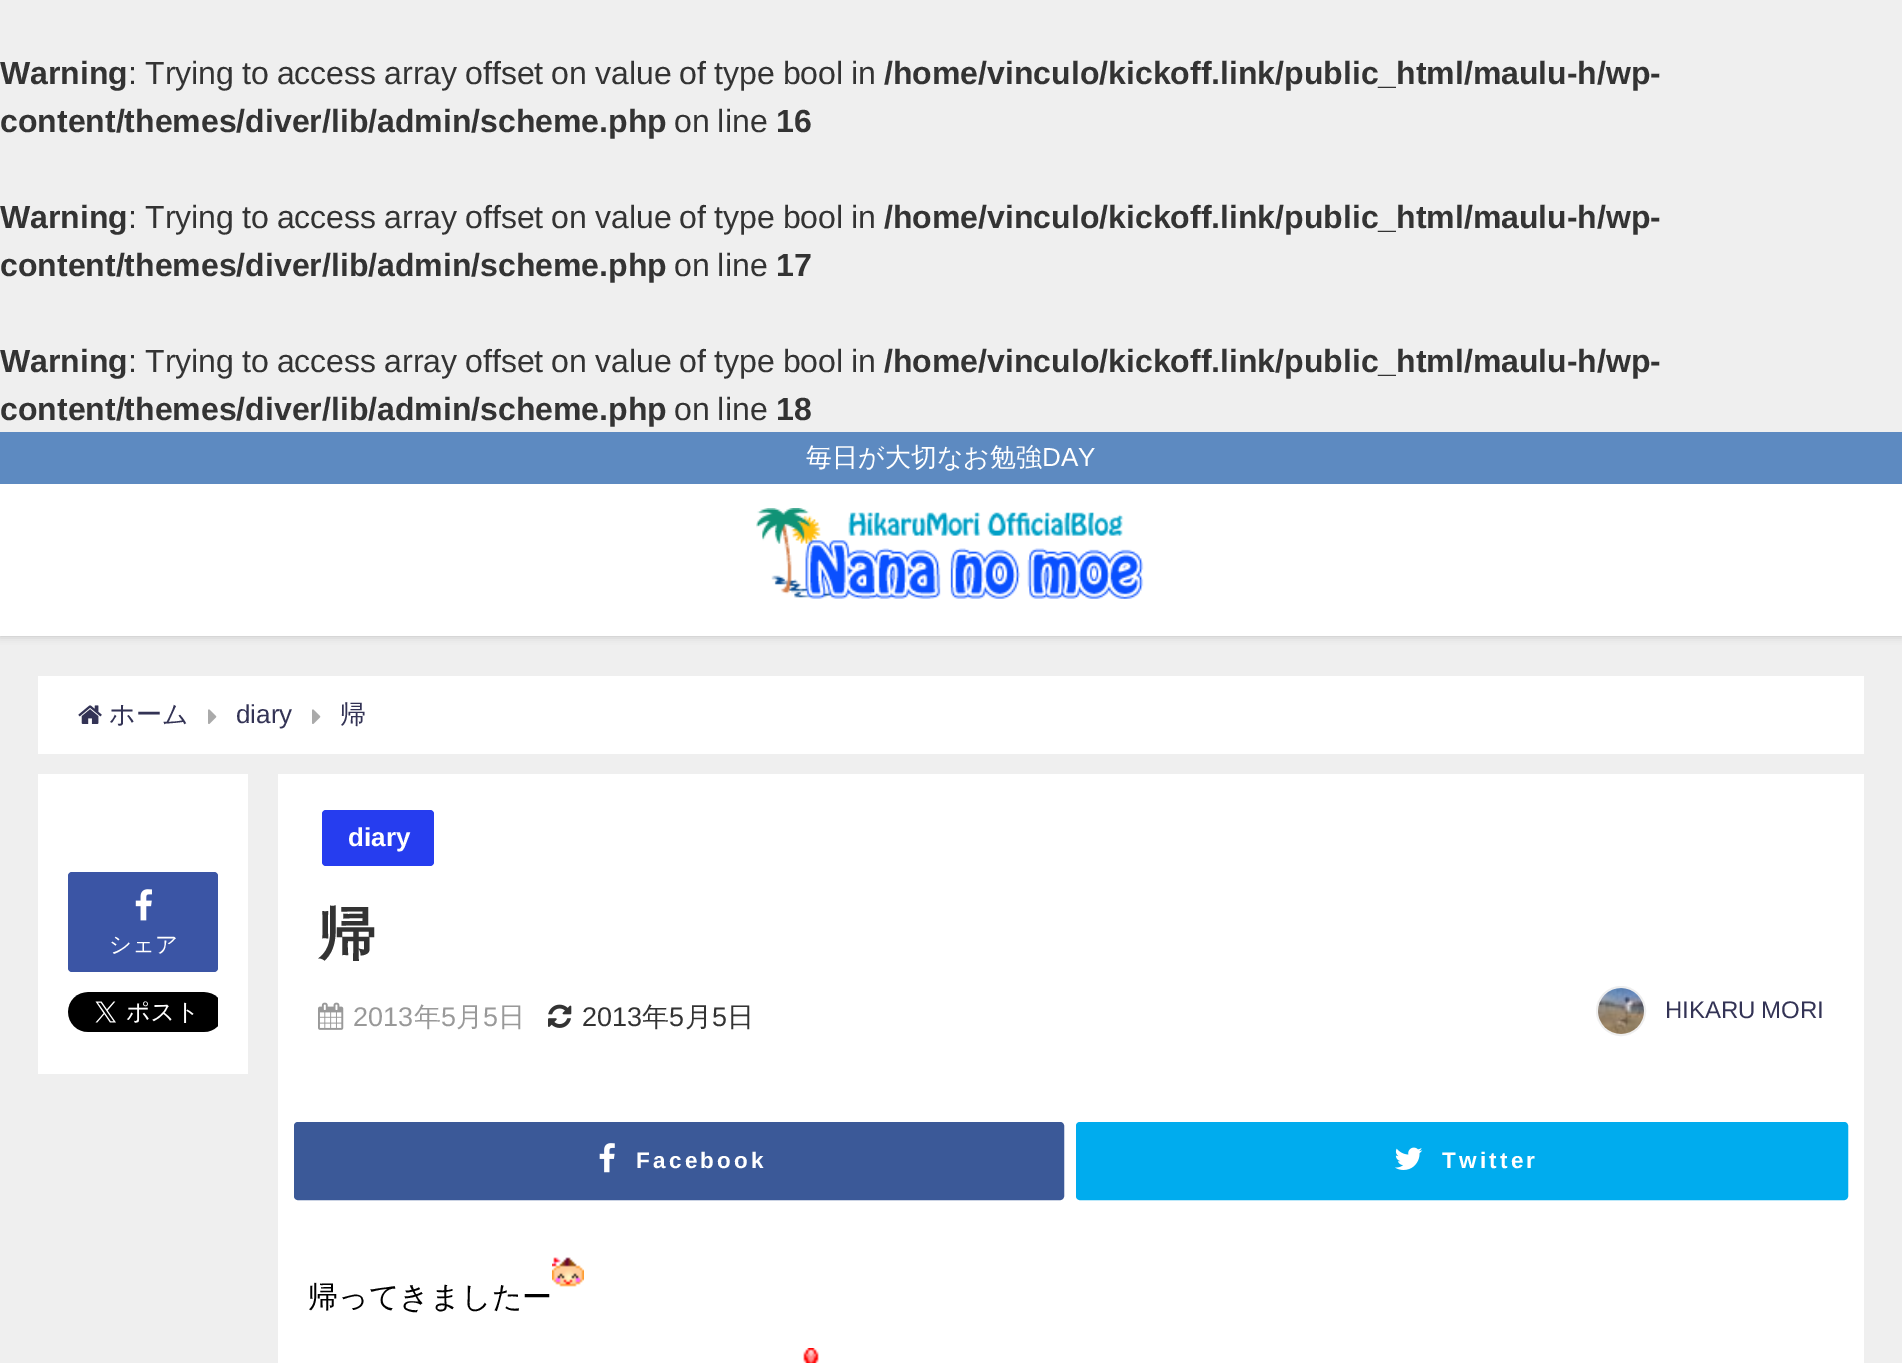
%!PS-Adobe-3.0
%%BoundingBox: 0 0 1902 1363
%%LanguageLevel: 3
%%Pages: 1
%%EndComments
%%BeginProlog
/setalpha { dup .setfillconstantalpha .setstrokeconstantalpha } def
/rrect { 5 dict begin { /r /h /w /y /x } { exch def } forall
  x r add y moveto x w add y 2 copy h add r arct x w add y h add x 1 index r arct
  x y h add x y r arct x y 2 copy exch w add exch r arct closepath end } def
/softshadow { 12 dict begin { /a /b /q /h /w /y /x } { exch def } forall gsave /was 0 def
  9 -2 -9 { dup b mul 4 div /e exch def 1 sub .425 mul 2.718 exch exp 1 add a .99 .min exch div /now exch def
    1 1 now sub 1 was sub div sub setalpha /was now def
    w h .min e 2 mul add 0 gt { x e sub y e sub w e 2 mul add h e 2 mul add
      q e add b .6 mul add w h .min 2 div e add .min 0 .max rrect fill } if } for grestore end } def
/drawimage { 5 dict begin { /h /w /y /x /name } { exch def } forall
  gsave x y translate w h scale
  w h 8 [w 0 0 h 0 0] name (r) file false 3 colorimage grestore end } def
%%EndProlog
%%BeginSetup
<< /PageSize [1902 1363] /PageUsesTransparency true >> setpagedevice
%%EndSetup
%%Page: 1 1
0 .pushpdf14devicefilter
0 1363 translate 1 -1 scale
4 setmiterlimit
0.937 setgray
0 0 1902 1363 rectfill
gsave
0 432 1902 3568 rectclip
0 setgray
0 432 1902 204 0 4 0.2 softshadow
grestore
1 setgray
0 484 1902 152 rectfill
0.365 0.541 0.757 setrgbcolor
0 432 1902 52 rectfill
(images/1.raw) 756 508 388 91 drawimage
1 setgray
38 676 1826 78 rectfill
(images/2.raw) 78 705 24 19 drawimage
(images/3.raw) 208 709 9 15 drawimage
(images/3.raw) 312 709 9 15 drawimage
38 774 210 300 rectfill
0.231 0.333 0.647 setrgbcolor
68 872 150 100 4 rrect fill
(images/4.raw) 135 889 17 32 drawimage
(images/5.raw) 68 992 150 40 drawimage
1 setgray
278 774 1586 589 rectfill
0.149 0.239 0.937 setrgbcolor
322 810 112 56 4 rrect fill
(images/6.raw) 318 1002 26 28 drawimage
(images/7.raw) 548 1004 24 24 drawimage
0.933 setgray
2 setlinewidth
newpath 1621 1011 24 0 360 arc closepath stroke
(images/8.raw) 1598 988 46 46 drawimage
0.231 0.349 0.596 setrgbcolor
296 1124 766 74 2 rrect gsave fill grestore
4 setlinewidth
stroke
(images/9.raw) 599 1143 16 30 drawimage
0 0.675 0.933 setrgbcolor
1078 1124 768 74 2 rrect gsave fill grestore
stroke
(images/10.raw) 1395 1147 28 23 drawimage
(images/11.raw) 552 1257 32 30 drawimage
(images/12.raw) 803 1348 16 15 drawimage
/LiberationSans-Bold [32 0 0 -32 0 0] selectfont
0.2 setgray
0 84 moveto (Warning) show
/LiberationSans-Regular [32 0 0 -32 0 0] selectfont
128 84 moveto (:) show
145 84 moveto -0.9 0 32 (Trying to access array offset on value of type bool in) widthshow
/LiberationSans-Bold [32 0 0 -32 0 0] selectfont
884 84 moveto (/home/vinculo/kickoff.link/public_html/maulu-h/wp-) show
0 132 moveto (content/themes/diver/lib/admin/scheme.php) show
/LiberationSans-Regular [32 0 0 -32 0 0] selectfont
674 132 moveto -1 0 32 (on line) widthshow
/LiberationSans-Bold [32 0 0 -32 0 0] selectfont
776 132 moveto (16) show
0 228 moveto (Warning) show
/LiberationSans-Regular [32 0 0 -32 0 0] selectfont
128 228 moveto (:) show
145 228 moveto -0.9 0 32 (Trying to access array offset on value of type bool in) widthshow
/LiberationSans-Bold [32 0 0 -32 0 0] selectfont
884 228 moveto (/home/vinculo/kickoff.link/public_html/maulu-h/wp-) show
0 276 moveto (content/themes/diver/lib/admin/scheme.php) show
/LiberationSans-Regular [32 0 0 -32 0 0] selectfont
674 276 moveto -1 0 32 (on line) widthshow
/LiberationSans-Bold [32 0 0 -32 0 0] selectfont
776 276 moveto (17) show
0 372 moveto (Warning) show
/LiberationSans-Regular [32 0 0 -32 0 0] selectfont
128 372 moveto (:) show
145 372 moveto -0.9 0 32 (Trying to access array offset on value of type bool in) widthshow
/LiberationSans-Bold [32 0 0 -32 0 0] selectfont
884 372 moveto (/home/vinculo/kickoff.link/public_html/maulu-h/wp-) show
0 420 moveto (content/themes/diver/lib/admin/scheme.php) show
/LiberationSans-Regular [32 0 0 -32 0 0] selectfont
674 420 moveto -1 0 32 (on line) widthshow
/LiberationSans-Bold [32 0 0 -32 0 0] selectfont
776 420 moveto (18) show
/WenQuanYiZenHei-Medium [26 0 0 -26 0 0] selectfont
1 setgray
806 466 moveto (毎日が大切なお勉強) show
/LiberationSans-Regular [26 0 0 -26 0 0] selectfont
1042 466 moveto (DAY) show
/WenQuanYiZenHei-Medium [26 0 0 -26 0 0] selectfont
0.2 0.2 0.333 setrgbcolor
109 723 moveto (ホーム) show
/LiberationSans-Regular [26 0 0 -26 0 0] selectfont
236 723 moveto (diary) show
/WenQuanYiZenHei-Medium [26 0 0 -26 0 0] selectfont
340 723 moveto (帰) show
/WenQuanYiZenHei-Medium [22.5 0 0 -22.5 0 0] selectfont
1 setgray
109 952 moveto (シェア) show
/LiberationSans-Bold [26 0 0 -26 0 0] selectfont
348 846 moveto (diary) show
/WenQuanYiZenHei-Bold [58 0 0 -58 0 0] selectfont
0.2 setgray
318 954 moveto (帰) show
/LiberationSans-Regular [27 0 0 -27 0 0] selectfont
0.6 setgray
353 1026 moveto (2013) show
/WenQuanYiZenHei-Medium [27 0 0 -27 0 0] selectfont
414 1026 moveto (年) show
/LiberationSans-Regular [27 0 0 -27 0 0] selectfont
441 1026 moveto (5) show
/WenQuanYiZenHei-Medium [27 0 0 -27 0 0] selectfont
456 1026 moveto (月) show
/LiberationSans-Regular [27 0 0 -27 0 0] selectfont
483 1026 moveto (5) show
/WenQuanYiZenHei-Medium [27 0 0 -27 0 0] selectfont
498 1026 moveto (日) show
/LiberationSans-Regular [27 0 0 -27 0 0] selectfont
0.2 setgray
582 1026 moveto (2013) show
/WenQuanYiZenHei-Medium [27 0 0 -27 0 0] selectfont
642 1026 moveto (年) show
/LiberationSans-Regular [27 0 0 -27 0 0] selectfont
669 1026 moveto (5) show
/WenQuanYiZenHei-Medium [27 0 0 -27 0 0] selectfont
685 1026 moveto (月) show
/LiberationSans-Regular [27 0 0 -27 0 0] selectfont
712 1026 moveto (5) show
/WenQuanYiZenHei-Medium [27 0 0 -27 0 0] selectfont
727 1026 moveto (日) show
/LiberationSans-Regular [24 0 0 -24 0 0] selectfont
0.2 0.2 0.333 setrgbcolor
1665 1018 moveto -1 0 32 (HIKARU MORI) widthshow
/LiberationSans-Bold [22.5 0 0 -22.5 0 0] selectfont
1 setgray
636 1168 moveto 3.25 0 (Facebook) ashow
1442 1168 moveto 3.25 0 (Twitter) ashow
/WenQuanYiZenHei-Medium [30 0 0 -30 0 0] selectfont
0 setgray
308 1307 moveto (帰ってきましたー) show
.poppdf14devicefilter showpage
%%EOF
